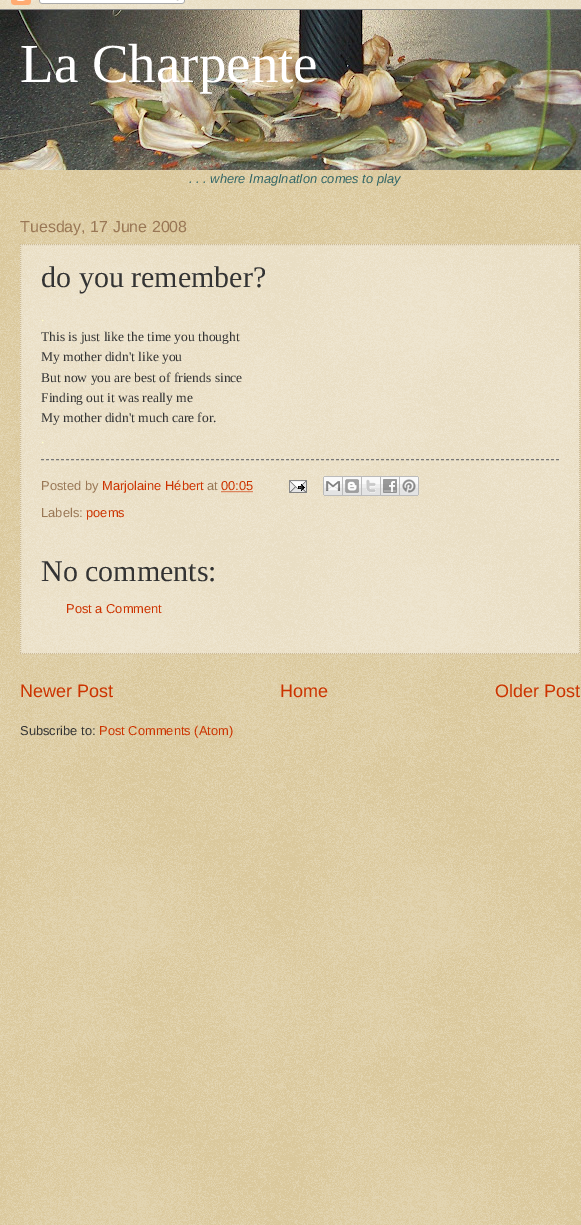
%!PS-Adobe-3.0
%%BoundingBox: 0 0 581 1225
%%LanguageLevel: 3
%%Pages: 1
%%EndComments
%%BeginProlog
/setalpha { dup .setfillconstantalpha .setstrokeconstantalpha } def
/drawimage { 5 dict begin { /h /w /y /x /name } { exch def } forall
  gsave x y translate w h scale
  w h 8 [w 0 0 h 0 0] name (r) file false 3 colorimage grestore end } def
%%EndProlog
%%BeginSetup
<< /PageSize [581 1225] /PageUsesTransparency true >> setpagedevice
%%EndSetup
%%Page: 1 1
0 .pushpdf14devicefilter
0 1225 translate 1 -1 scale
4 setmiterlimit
0.753 0.631 0.329 setrgbcolor
0 0 581 1225 rectfill
(images/1.raw) 0 0 581 1225 drawimage
(images/2.raw) 0 0 581 10 drawimage
(images/3.raw) 0 10 581 160 drawimage
0.4 setalpha
1 setgray
20 244 560 410 rectfill
1 setalpha
0.8 0.733 0.6 setrgbcolor
[1 1] 0 setdash
newpath 20 244.5 moveto 580 244.5 lineto stroke
newpath 579.5 244 moveto 579.5 654 lineto stroke
newpath 20 653.5 moveto 580 653.5 lineto stroke
newpath 20.5 244 moveto 20.5 654 lineto stroke
0.467 setgray
[3 2] 0 setdash
newpath 41 459.5 moveto 559 459.5 lineto stroke
0.8 0.2 0 setrgbcolor
[1 1] 0 setdash
newpath 221.5 491.5 moveto 253.5 491.5 lineto stroke
(images/4.raw) 289 480 18 13 drawimage
(images/5.raw) 323 476 20 20 drawimage
(images/6.raw) 343 476 19 20 drawimage
(images/7.raw) 362 476 19 20 drawimage
(images/8.raw) 381 476 19 20 drawimage
(images/9.raw) 400 476 19 20 drawimage
/LiberationSerif-Regular [55 0 0 -55 0 0] selectfont
1 setgray
20 82 moveto (La Charpente) show
/LiberationSans-Italic [12.9 0 0 -12.9 0 0] selectfont
0.2 0.4 0.4 setrgbcolor
189 183 moveto (. . . where ImagInatIon comes to play) show
/LiberationSans-Regular [16 0 0 -16 0 0] selectfont
0.6 0.467 0.333 setrgbcolor
20 232 moveto (Tuesday, 17 June 2008) show
/LiberationSerif-Regular [30 0 0 -30 0 0] selectfont
0.2 setgray
41 287 moveto (do you remember?) show
/LiberationSerif-Regular [13.5 0 0 -13.5 0 0] selectfont
1 1 0.8 setrgbcolor
41 321 moveto (.) show
0.2 setgray
41 341 moveto (This is just like the time you thought) show
41 361 moveto (My mother didn't like you) show
41 382 moveto (But now you are best of friends since) show
41 402 moveto (Finding out it was really me) show
41 422 moveto (My mother didn't much care for.) show
1 1 0.8 setrgbcolor
41 443 moveto (.) show
/LiberationSans-Regular [12.9 0 0 -12.9 0 0] selectfont
0.6 0.467 0.333 setrgbcolor
41 490 moveto (Posted by) show
0.8 0.2 0 setrgbcolor
102 490 moveto (Marjolaine Hébert) show
0.6 0.467 0.333 setrgbcolor
207 490 moveto (at) show
0.8 0.2 0 setrgbcolor
221 490 moveto (00:05) show
0.6 0.467 0.333 setrgbcolor
41 517 moveto (Labels:) show
0.8 0.2 0 setrgbcolor
86 517 moveto (poems) show
/LiberationSerif-Regular [30 0 0 -30 0 0] selectfont
0.2 setgray
41 581 moveto (No comments:) show
/LiberationSans-Regular [12.9 0 0 -12.9 0 0] selectfont
0.8 0.2 0 setrgbcolor
66 613 moveto (Post a Comment) show
/LiberationSans-Regular [18 0 0 -18 0 0] selectfont
20 697 moveto (Newer Post) show
280 697 moveto (Home) show
495 697 moveto (Older Post) show
/LiberationSans-Regular [12.9 0 0 -12.9 0 0] selectfont
0.2 setgray
20 735 moveto (Subscribe to:) show
0.8 0.2 0 setrgbcolor
99 735 moveto (Post Comments \(Atom\)) show
.poppdf14devicefilter showpage
%%EOF
